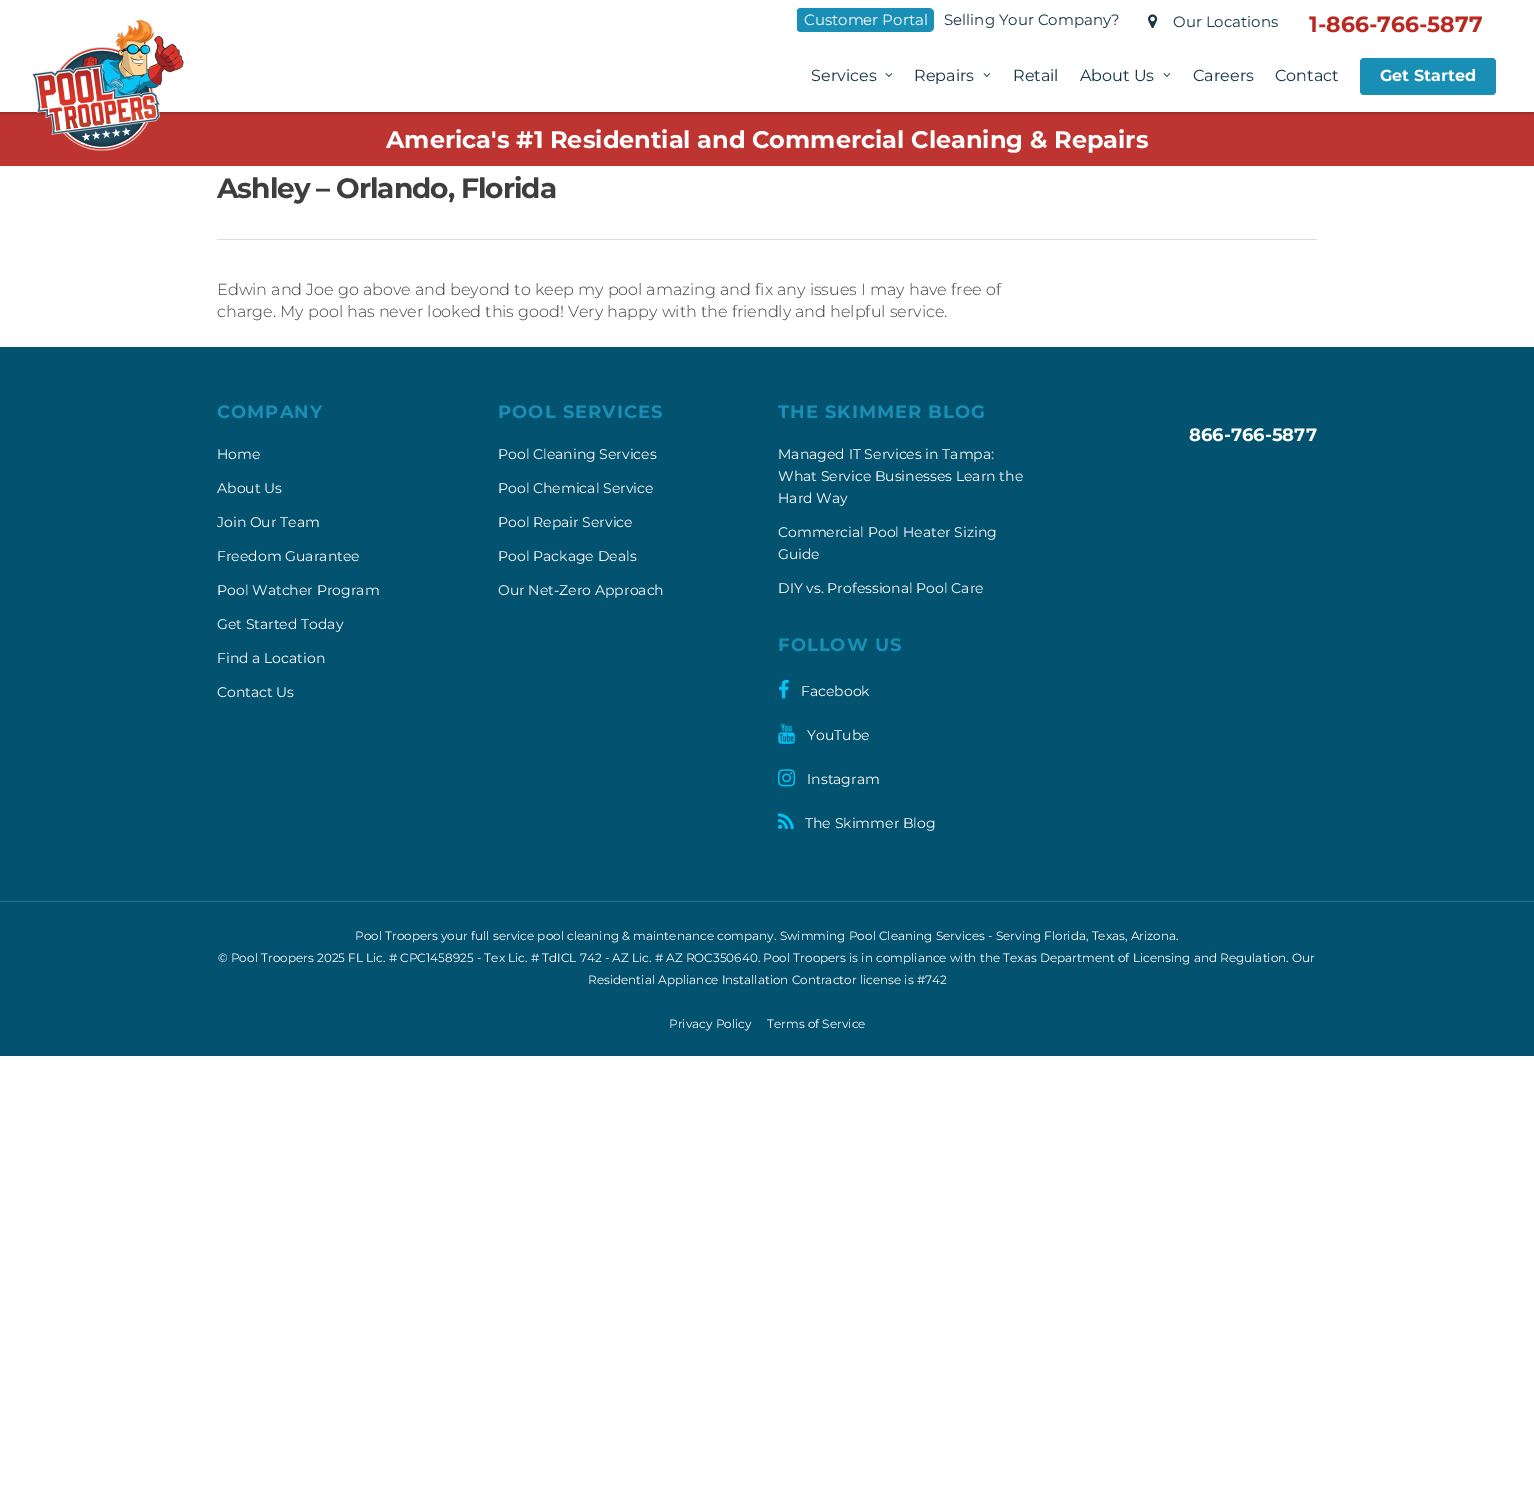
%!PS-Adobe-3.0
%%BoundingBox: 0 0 1534 1497
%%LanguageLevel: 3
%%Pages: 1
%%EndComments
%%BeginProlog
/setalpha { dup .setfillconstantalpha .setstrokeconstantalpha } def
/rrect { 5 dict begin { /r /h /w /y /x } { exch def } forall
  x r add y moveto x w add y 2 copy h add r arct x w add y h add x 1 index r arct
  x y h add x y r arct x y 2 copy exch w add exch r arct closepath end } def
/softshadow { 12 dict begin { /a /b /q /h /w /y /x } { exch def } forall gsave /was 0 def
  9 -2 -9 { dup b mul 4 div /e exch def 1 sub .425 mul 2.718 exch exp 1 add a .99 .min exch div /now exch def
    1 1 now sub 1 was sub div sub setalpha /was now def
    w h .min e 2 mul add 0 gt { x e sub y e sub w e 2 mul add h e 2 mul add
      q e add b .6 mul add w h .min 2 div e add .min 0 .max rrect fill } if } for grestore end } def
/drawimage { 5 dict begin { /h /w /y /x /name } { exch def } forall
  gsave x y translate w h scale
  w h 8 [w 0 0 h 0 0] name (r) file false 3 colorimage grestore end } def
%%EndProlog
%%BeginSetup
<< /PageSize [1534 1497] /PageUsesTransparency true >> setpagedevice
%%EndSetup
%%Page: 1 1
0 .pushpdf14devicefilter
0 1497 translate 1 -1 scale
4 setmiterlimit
1 setgray
0 0 1534 1497 rectfill
0.098 0.561 0.714 setrgbcolor
796 8 138 24 5 rrect fill
1 setgray
796 11 1 19 rectfill
(images/1.raw) 1148 14 10 15 drawimage
0.745 0.204 0.192 setrgbcolor
0 112 1534 54 rectfill
0 setgray
0 35 1534 79 0 1 0.2 softshadow
1 setgray
0 33 1534 79 rectfill
(images/2.raw) 32 20 152 131 drawimage
(images/3.raw) 885 73 8 4 drawimage
(images/3.raw) 983 73 8 4 drawimage
(images/3.raw) 1163 73 8 4 drawimage
0.098 0.561 0.714 setrgbcolor
1360 58 136 37 4 rrect fill
0.867 setgray
217 239 1100 1 rectfill
0.012 0.322 0.439 setrgbcolor
0 347 1534 709 rectfill
(images/4.raw) 779 679 10 20 drawimage
(images/5.raw) 778 723 17 21 drawimage
(images/6.raw) 778 769 18 18 drawimage
(images/7.raw) 778 813 16 16 drawimage
0.188 0.443 0.541 setrgbcolor
0 901 1534 1 rectfill
/Montserrat-Regular [15 0 0 -15 0 0] selectfont
1 setgray
804 25 moveto (Customer Portal) show
0.078 0.212 0.278 setrgbcolor
944 25 moveto (Selling Your Company?) show
1173 27 moveto (Our Locations) show
/Montserrat-Bold [22 0 0 -22 0 0] selectfont
0.729 0.161 0.125 setrgbcolor
1309 32 moveto (1-866-766-5877) show
/Montserrat-Regular [16 0 0 -16 0 0] selectfont
0.078 0.212 0.278 setrgbcolor
811 81 moveto (Services) show
914 81 moveto (Repairs) show
1013 81 moveto (Retail) show
1080 81 moveto (About Us) show
1193 81 moveto (Careers) show
1275 81 moveto (Contact) show
/Montserrat-Bold [16 0 0 -16 0 0] selectfont
1 setgray
1380 81 moveto (Get Started) show
/Montserrat-Bold [24 0 0 -24 0 0] selectfont
386 148 moveto (America's #1 Residential and Commercial Cleaning & Repairs) show
/Montserrat-Bold [28 0 0 -28 0 0] selectfont
0.243 setgray
217 198 moveto -1 0 (Ashley – Orlando, Florida) ashow
/Montserrat-Light [16 0 0 -16 0 0] selectfont
217 295 moveto (Edwin and Joe go above and beyond to keep my pool amazing and fix any issues I may have free of) show
217 317 moveto (charge. My pool has never looked this good! Very happy with the friendly and helpful service.) show
/Montserrat-Bold [18 0 0 -18 0 0] selectfont
0.098 0.561 0.714 setrgbcolor
217 418 moveto 1 0 (COMPANY) ashow
/Montserrat-Regular [14 0 0 -14 0 0] selectfont
1 setgray
217 459 moveto (Home) show
217 493 moveto (About Us) show
217 527 moveto (Join Our Team) show
217 561 moveto (Freedom Guarantee) show
217 595 moveto (Pool Watcher Program) show
217 629 moveto (Get Started Today) show
217 663 moveto (Find a Location) show
217 697 moveto (Contact Us) show
/Montserrat-Bold [18 0 0 -18 0 0] selectfont
0.098 0.561 0.714 setrgbcolor
498 418 moveto 1 0 (POOL SERVICES) ashow
/Montserrat-Regular [14 0 0 -14 0 0] selectfont
1 setgray
498 459 moveto (Pool Cleaning Services) show
498 493 moveto (Pool Chemical Service) show
498 527 moveto (Pool Repair Service) show
498 561 moveto (Pool Package Deals) show
498 595 moveto (Our Net-Zero Approach) show
/Montserrat-Bold [18 0 0 -18 0 0] selectfont
0.098 0.561 0.714 setrgbcolor
778 418 moveto 1 0 (THE SKIMMER BLOG) ashow
/Montserrat-Regular [14 0 0 -14 0 0] selectfont
1 setgray
778 459 moveto (Managed IT Services in Tampa:) show
778 481 moveto (What Service Businesses Learn the) show
778 503 moveto (Hard Way) show
778 537 moveto (Commercial Pool Heater Sizing) show
778 559 moveto (Guide) show
778 593 moveto (DIY vs. Professional Pool Care) show
/Montserrat-Bold [18 0 0 -18 0 0] selectfont
0.098 0.561 0.714 setrgbcolor
778 651 moveto 1 0 (FOLLOW US) ashow
/Montserrat-Regular [14 0 0 -14 0 0] selectfont
1 setgray
801 696 moveto (Facebook) show
807 740 moveto (YouTube) show
807 784 moveto (Instagram) show
805 828 moveto (The Skimmer Blog) show
/Montserrat-Bold [18 0 0 -18 0 0] selectfont
1189 441 moveto (866-766-5877) show
/Montserrat-Regular [12 0 0 -12 0 0] selectfont
355 940 moveto (Pool Troopers your full service pool cleaning & maintenance company. Swimming Pool Cleaning Services - Serving Florida, Texas, Arizona.) show
218 962 moveto (© Pool Troopers 2025 FL Lic. # CPC1458925 - Tex Lic. # TdICL 742 - AZ Lic. # AZ ROC350640. Pool Troopers is in compliance with the Texas Department of Licensing and Regulation. Our) show
588 984 moveto (Residential Appliance Installation Contractor license is #742) show
669 1028 moveto (Privacy Policy) show
767 1028 moveto (Terms of Service) show
.poppdf14devicefilter showpage
%%EOF
